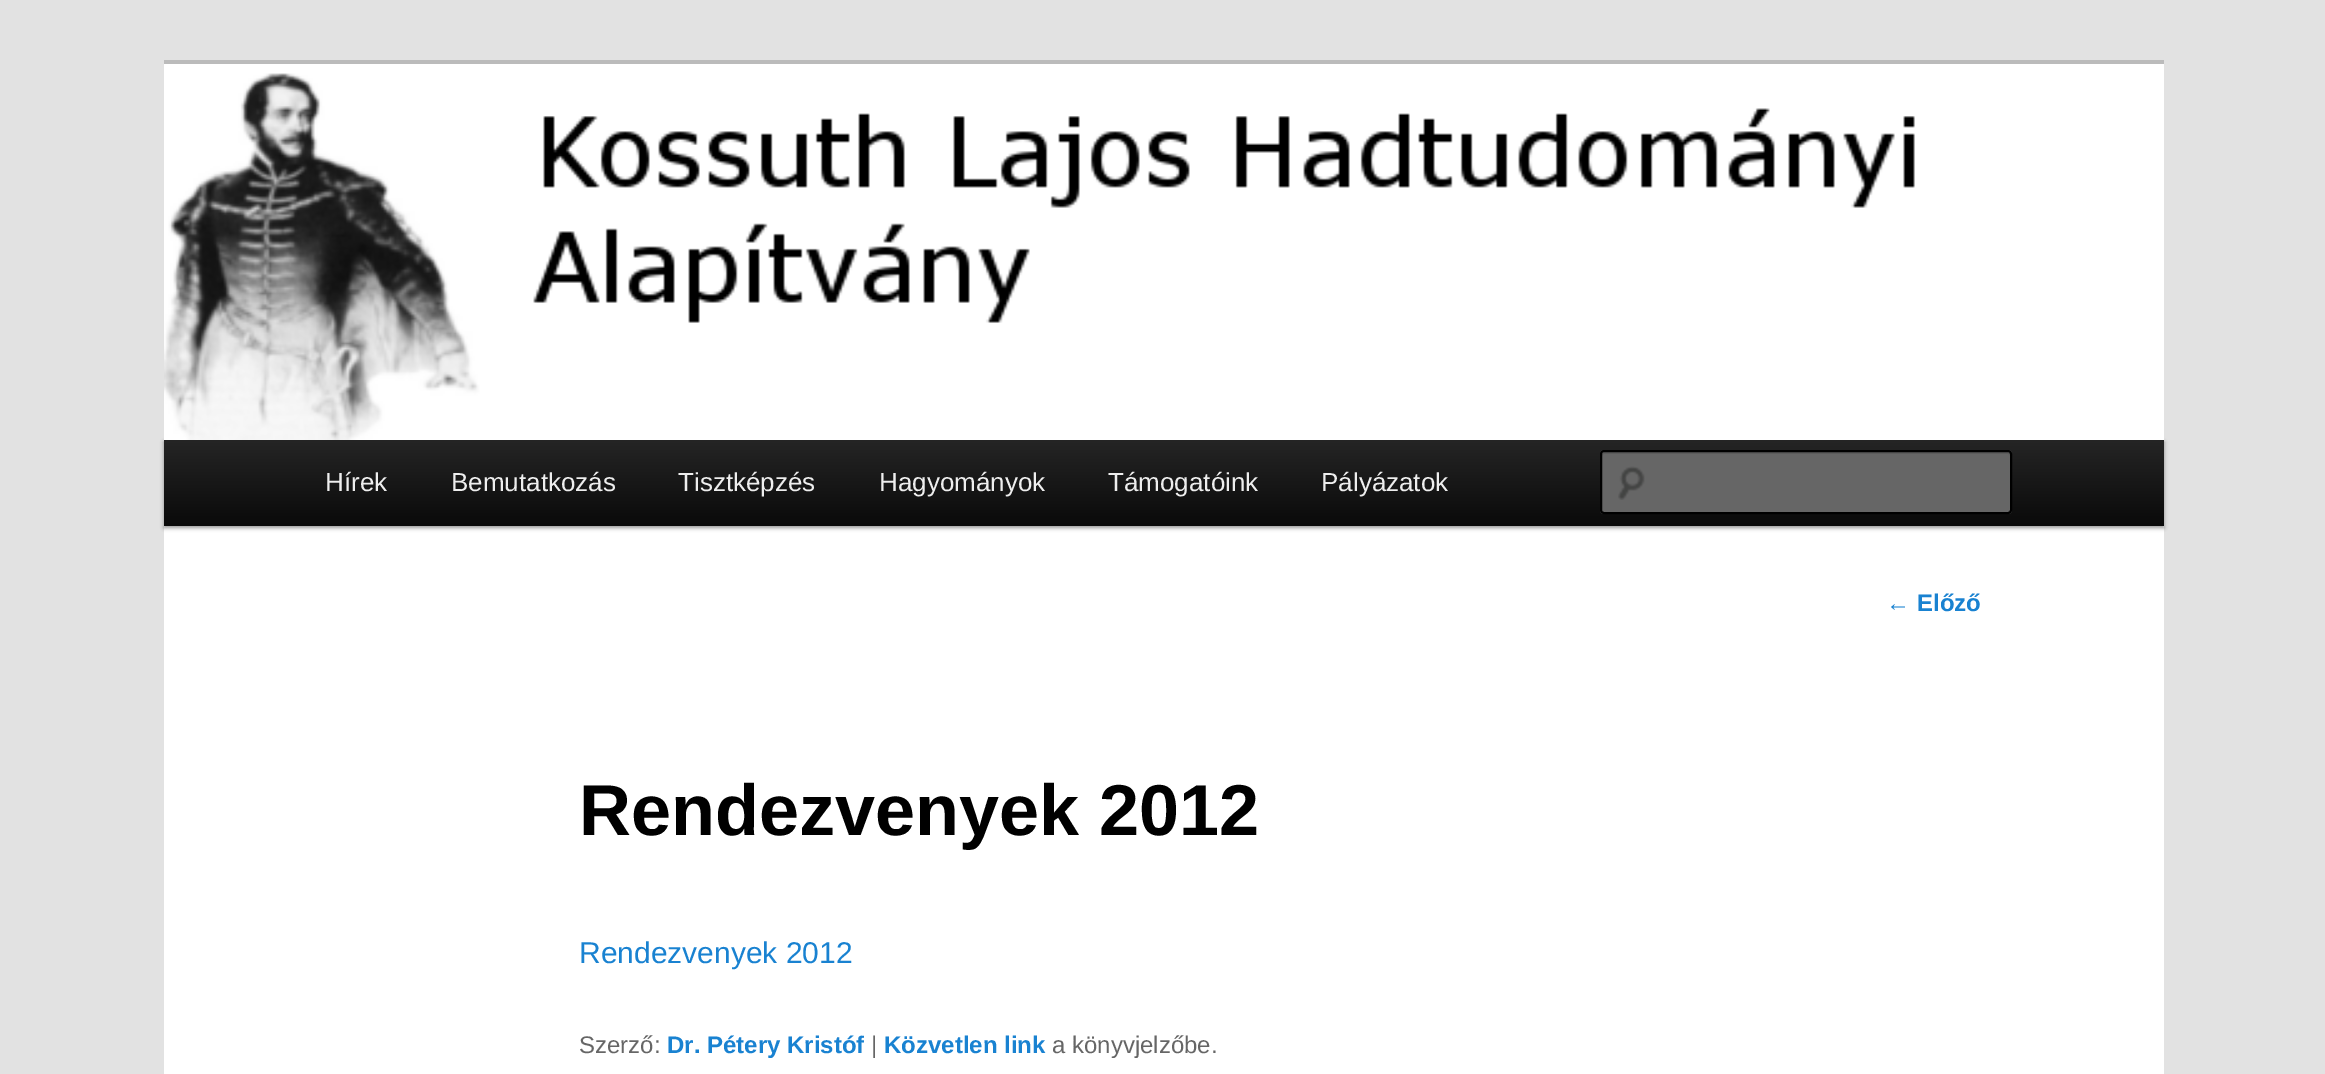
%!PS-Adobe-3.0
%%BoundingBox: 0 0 2325 1074
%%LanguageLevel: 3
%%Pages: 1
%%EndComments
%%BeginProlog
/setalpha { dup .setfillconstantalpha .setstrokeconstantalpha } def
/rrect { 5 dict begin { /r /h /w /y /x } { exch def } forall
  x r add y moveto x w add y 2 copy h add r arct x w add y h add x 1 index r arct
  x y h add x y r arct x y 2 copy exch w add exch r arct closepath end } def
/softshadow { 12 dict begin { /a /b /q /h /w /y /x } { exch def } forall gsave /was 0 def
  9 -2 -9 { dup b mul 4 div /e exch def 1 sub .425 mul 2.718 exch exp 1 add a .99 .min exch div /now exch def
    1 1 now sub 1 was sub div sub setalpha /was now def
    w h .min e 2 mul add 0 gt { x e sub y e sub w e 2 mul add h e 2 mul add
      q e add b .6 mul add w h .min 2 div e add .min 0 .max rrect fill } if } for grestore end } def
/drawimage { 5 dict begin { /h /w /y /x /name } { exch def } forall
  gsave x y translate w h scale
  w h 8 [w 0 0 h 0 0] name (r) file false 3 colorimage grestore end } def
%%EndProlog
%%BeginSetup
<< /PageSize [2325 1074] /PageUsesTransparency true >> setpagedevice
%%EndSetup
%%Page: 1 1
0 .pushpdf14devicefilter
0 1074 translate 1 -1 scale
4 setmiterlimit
0.886 setgray
0 0 2325 1074 rectfill
1 setgray
164 64 2000 1010 rectfill
0.733 setgray
164 60 2000 4 rectfill
0 setgray
164 442 2000 86 0 2 0.4 softshadow
(images/1.raw) 164 73 2000 367 drawimage
gsave newpath 164 440 moveto 2164 440 lineto 2164 526 lineto 164 526 lineto closepath clip newpath
<< /ShadingType 2 /ColorSpace /DeviceRGB /Coords [1164 440 1164 526] /Extend [true true] /Function << /FunctionType 2 /Domain [0 1] /C0 [0.145 0.145 0.145] /C1 [0.039 0.039 0.039] /N 1 >> >> shfill grestore
0.4 setgray
1600 450 412 64 4 rrect fill
(images/2.raw) 1618 466 27 34 drawimage
0.361 setgray
newpath 1604 454 moveto 2008 454 lineto 2009 454 2010 455 2010 456 curveto 2010 453 lineto 2008 452 lineto 1604 452 lineto 1602 452 1602 454 1602 456 curveto 1602 455 1603 454 1604 454 curveto closepath fill
0 setgray
2 setlinewidth
1601 451 410 62 3 rrect stroke
/LiberationSans-Regular [26 0 0 -26 0 0] selectfont
0.933 setgray
325 491 moveto (Hírek) show
451 491 moveto (Bemutatkozás) show
678 491 moveto (Tisztképzés) show
879 491 moveto (Hagyományok) show
1108 491 moveto (Támogatóink) show
1321 491 moveto (Pályázatok) show
/LiberationSans-Regular [24 0 0 -24 0 0] selectfont
0.098 0.51 0.82 setrgbcolor
1886 611 moveto (←) show
/LiberationSans-Bold [24 0 0 -24 0 0] selectfont
1917 611 moveto (Előző) show
/LiberationSans-Bold [72 0 0 -72 0 0] selectfont
0 setgray
579 835 moveto (Rendezvenyek 2012) show
/LiberationSans-Regular [30 0 0 -30 0 0] selectfont
0.098 0.51 0.82 setrgbcolor
579 963 moveto (Rendezvenyek 2012) show
/LiberationSans-Regular [24 0 0 -24 0 0] selectfont
0.4 setgray
579 1053 moveto (Szerző:) show
/LiberationSans-Bold [24 0 0 -24 0 0] selectfont
0.098 0.51 0.82 setrgbcolor
667 1053 moveto (Dr. Pétery Kristóf) show
/LiberationSans-Regular [24 0 0 -24 0 0] selectfont
0.4 setgray
871 1053 moveto (|) show
/LiberationSans-Bold [24 0 0 -24 0 0] selectfont
0.098 0.51 0.82 setrgbcolor
884 1053 moveto (Közvetlen link) show
/LiberationSans-Regular [24 0 0 -24 0 0] selectfont
0.4 setgray
1052 1053 moveto (a könyvjelzőbe.) show
.poppdf14devicefilter showpage
%%EOF
